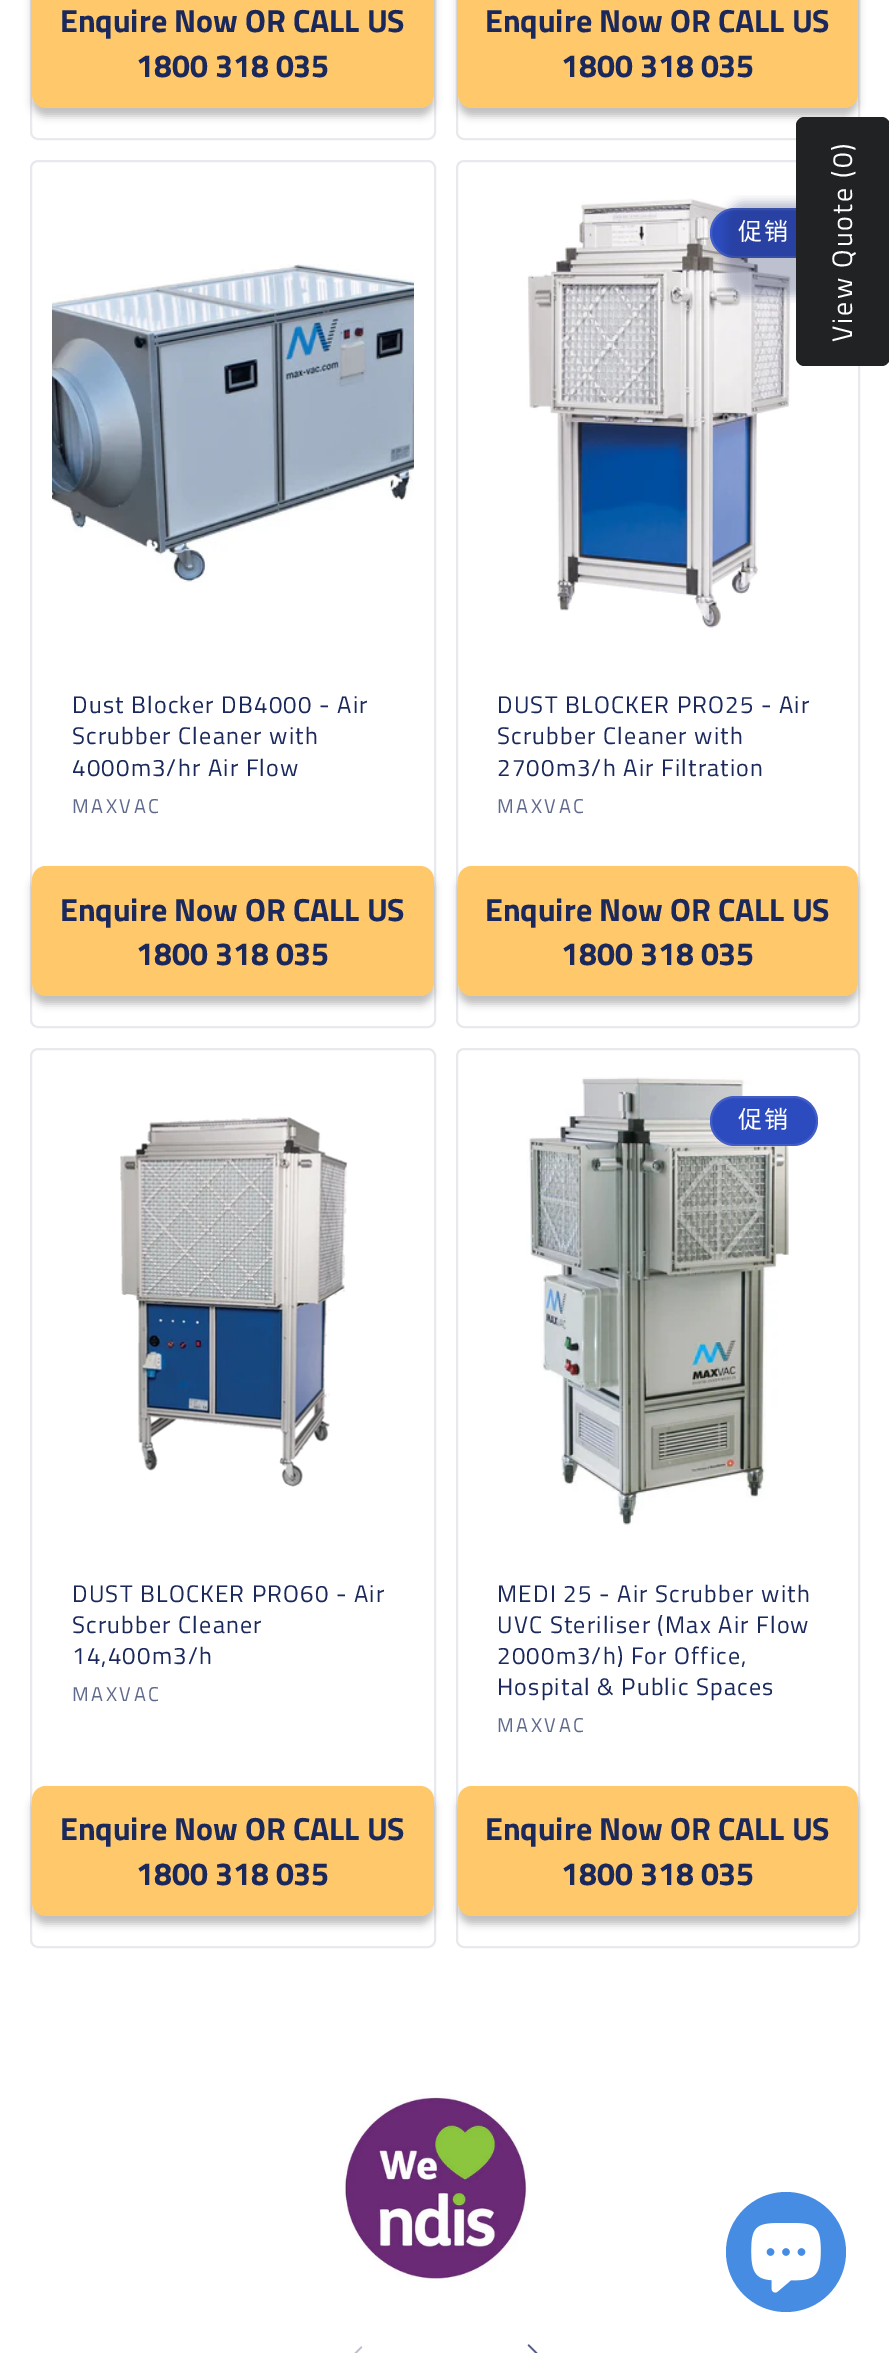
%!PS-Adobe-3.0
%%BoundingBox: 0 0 889 2353
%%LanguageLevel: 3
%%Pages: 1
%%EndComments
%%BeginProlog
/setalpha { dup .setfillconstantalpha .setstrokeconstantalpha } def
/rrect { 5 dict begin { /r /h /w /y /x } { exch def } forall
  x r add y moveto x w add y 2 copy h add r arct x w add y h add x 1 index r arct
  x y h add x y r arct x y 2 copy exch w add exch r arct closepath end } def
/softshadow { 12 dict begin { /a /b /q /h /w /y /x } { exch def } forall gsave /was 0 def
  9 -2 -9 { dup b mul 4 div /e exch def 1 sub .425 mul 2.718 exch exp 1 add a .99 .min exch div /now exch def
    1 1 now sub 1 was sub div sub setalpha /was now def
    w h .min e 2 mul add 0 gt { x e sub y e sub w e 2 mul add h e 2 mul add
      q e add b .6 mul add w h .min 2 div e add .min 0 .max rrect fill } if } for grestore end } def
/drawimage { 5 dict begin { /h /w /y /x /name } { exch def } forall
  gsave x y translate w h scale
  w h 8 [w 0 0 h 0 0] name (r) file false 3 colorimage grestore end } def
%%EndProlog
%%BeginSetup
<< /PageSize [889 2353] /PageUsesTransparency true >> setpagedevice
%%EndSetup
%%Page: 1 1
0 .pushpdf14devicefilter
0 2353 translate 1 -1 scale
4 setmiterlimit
1 setgray
0 0 889 2353 rectfill
0.91 0.918 0.937 setrgbcolor
2 setlinewidth
31 -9 404 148 7 rrect stroke
0 setgray
32 -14 402 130 14 4 0.25 softshadow
1 0.788 0.42 setrgbcolor
32 -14 402 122 14 rrect fill
0.91 0.914 0.933 setrgbcolor
457 -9 402 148 7 rrect stroke
0 setgray
458 -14 400 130 14 4 0.25 softshadow
1 0.788 0.42 setrgbcolor
458 -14 400 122 14 rrect fill
0.91 0.914 0.933 setrgbcolor
31 161 404 866 7 rrect stroke
(images/1.raw) 52 264 362 319 drawimage
0 setgray
32 874 402 130 14 4 0.25 softshadow
1 0.788 0.42 setrgbcolor
32 866 402 130 14 rrect fill
0.91 0.914 0.933 setrgbcolor
457 161 402 866 7 rrect stroke
(images/2.raw) 527 198 264 430 drawimage
0.173 0.294 0.745 setrgbcolor
710 208 108 50 25 rrect fill
0.1 setalpha
1 setgray
711 209 106 48 24 rrect stroke
1 setalpha
0 setgray
458 874 400 130 14 4 0.25 softshadow
1 0.788 0.42 setrgbcolor
458 866 400 130 14 rrect fill
0.91 0.914 0.933 setrgbcolor
31 1049 404 898 7 rrect stroke
(images/3.raw) 120 1116 228 371 drawimage
0 setgray
32 1794 402 130 14 4 0.25 softshadow
1 0.788 0.42 setrgbcolor
32 1786 402 130 14 rrect fill
0.91 0.914 0.933 setrgbcolor
457 1049 402 898 7 rrect stroke
(images/4.raw) 527 1077 262 450 drawimage
0.173 0.294 0.745 setrgbcolor
710 1096 108 50 25 rrect fill
0.1 setalpha
1 setgray
711 1097 106 48 24 rrect stroke
1 setalpha
0 setgray
458 1794 400 130 14 4 0.25 softshadow
1 0.788 0.42 setrgbcolor
458 1786 400 130 14 rrect fill
(images/5.raw) 344 2094 184 188 drawimage
(images/6.raw) 354 2346 9 7 drawimage
(images/7.raw) 527 2344 11 9 drawimage
0.125 0.133 0.137 setrgbcolor
newpath 796 358 moveto 796 125 lineto 796 121 800 117 804 117 curveto 882 117 lineto 886 117 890 121 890 125 curveto 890 358 lineto 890 362 886 366 882 366 curveto 804 366 lineto 800 366 796 362 796 358 curveto closepath fill
gsave
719 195 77 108 rectclip
0.102 0.157 0.357 setrgbcolor
726 202 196 94 18 5 0.3 softshadow
grestore
0.271 0.549 0.886 setrgbcolor
newpath 786 2252 60 0 360 arc closepath fill
(images/8.raw) 751 2223 70 70 drawimage
/TitilliumWeb-Bold [32 0 0 -32 0 0] selectfont
0.102 0.157 0.357 setrgbcolor
60 32 moveto (Enquire Now OR CALL US) show
136 77 moveto (1800 318 035) show
485 32 moveto (Enquire Now OR CALL US) show
561 77 moveto (1800 318 035) show
/TitilliumWeb-Regular [24 0 0 -24 0 0] selectfont
72 713 moveto 1.2 0 (Dust Blocker DB4000 - Air) ashow
72 744 moveto 1.2 0 (Scrubber Cleaner with) ashow
72 776 moveto 1.2 0 (4000m3/hr Air Flow) ashow
/TitilliumWeb-Regular [20 0 0 -20 0 0] selectfont
0.373 0.412 0.549 setrgbcolor
72 813 moveto 2.5 0 (MAXVAC) ashow
/TitilliumWeb-Bold [32 0 0 -32 0 0] selectfont
0.102 0.157 0.357 setrgbcolor
60 921 moveto (Enquire Now OR CALL US) show
136 965 moveto (1800 318 035) show
/NotoSansCJKSC-Regular [24 0 0 -24 0 0] selectfont
1 setgray
738 240 moveto 2 0 (促销) ashow
/TitilliumWeb-Regular [24 0 0 -24 0 0] selectfont
0.102 0.157 0.357 setrgbcolor
497 713 moveto 1.2 0 (DUST BLOCKER PRO25 - Air) ashow
497 744 moveto 1.2 0 (Scrubber Cleaner with) ashow
497 776 moveto 1.2 0 (2700m3/h Air Filtration) ashow
/TitilliumWeb-Regular [20 0 0 -20 0 0] selectfont
0.373 0.412 0.549 setrgbcolor
497 813 moveto 2.5 0 (MAXVAC) ashow
/TitilliumWeb-Bold [32 0 0 -32 0 0] selectfont
0.102 0.157 0.357 setrgbcolor
485 921 moveto (Enquire Now OR CALL US) show
561 965 moveto (1800 318 035) show
/TitilliumWeb-Regular [24 0 0 -24 0 0] selectfont
72 1602 moveto 1.2 0 (DUST BLOCKER PRO60 - Air) ashow
72 1633 moveto 1.2 0 (Scrubber Cleaner) ashow
72 1664 moveto 1.2 0 (14,400m3/h) ashow
/TitilliumWeb-Regular [20 0 0 -20 0 0] selectfont
0.373 0.412 0.549 setrgbcolor
72 1701 moveto 2.5 0 (MAXVAC) ashow
/TitilliumWeb-Bold [32 0 0 -32 0 0] selectfont
0.102 0.157 0.357 setrgbcolor
60 1840 moveto (Enquire Now OR CALL US) show
136 1885 moveto (1800 318 035) show
/NotoSansCJKSC-Regular [24 0 0 -24 0 0] selectfont
1 setgray
738 1128 moveto 2 0 (促销) ashow
/TitilliumWeb-Regular [24 0 0 -24 0 0] selectfont
0.102 0.157 0.357 setrgbcolor
497 1602 moveto 1.2 0 (MEDI 25 - Air Scrubber with) ashow
497 1633 moveto 1.2 0 (UVC Steriliser \(Max Air Flow) ashow
497 1664 moveto 1.2 0 (2000m3/h\) For Office,) ashow
497 1695 moveto 1.2 0 (Hospital & Public Spaces) ashow
/TitilliumWeb-Regular [20 0 0 -20 0 0] selectfont
0.373 0.412 0.549 setrgbcolor
497 1732 moveto 2.5 0 (MAXVAC) ashow
/TitilliumWeb-Bold [32 0 0 -32 0 0] selectfont
0.102 0.157 0.357 setrgbcolor
485 1840 moveto (Enquire Now OR CALL US) show
561 1885 moveto (1800 318 035) show
/TitilliumWeb-Regular [28 0 0 -28 0 0] selectfont
1 setgray
gsave 852 342 translate -90 rotate 0 0 moveto 2 0 (View Quote \(0\)) ashow grestore
.poppdf14devicefilter showpage
%%EOF
